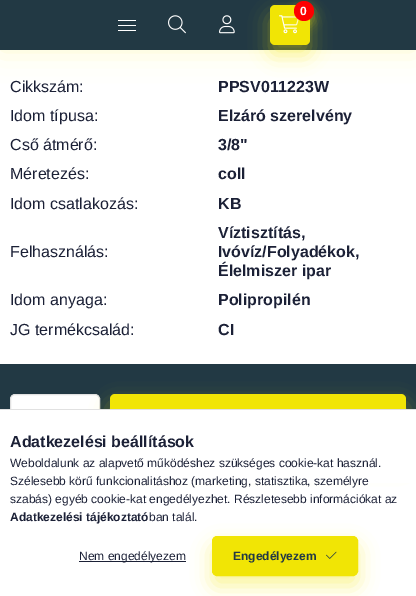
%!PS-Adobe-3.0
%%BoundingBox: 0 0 416 596
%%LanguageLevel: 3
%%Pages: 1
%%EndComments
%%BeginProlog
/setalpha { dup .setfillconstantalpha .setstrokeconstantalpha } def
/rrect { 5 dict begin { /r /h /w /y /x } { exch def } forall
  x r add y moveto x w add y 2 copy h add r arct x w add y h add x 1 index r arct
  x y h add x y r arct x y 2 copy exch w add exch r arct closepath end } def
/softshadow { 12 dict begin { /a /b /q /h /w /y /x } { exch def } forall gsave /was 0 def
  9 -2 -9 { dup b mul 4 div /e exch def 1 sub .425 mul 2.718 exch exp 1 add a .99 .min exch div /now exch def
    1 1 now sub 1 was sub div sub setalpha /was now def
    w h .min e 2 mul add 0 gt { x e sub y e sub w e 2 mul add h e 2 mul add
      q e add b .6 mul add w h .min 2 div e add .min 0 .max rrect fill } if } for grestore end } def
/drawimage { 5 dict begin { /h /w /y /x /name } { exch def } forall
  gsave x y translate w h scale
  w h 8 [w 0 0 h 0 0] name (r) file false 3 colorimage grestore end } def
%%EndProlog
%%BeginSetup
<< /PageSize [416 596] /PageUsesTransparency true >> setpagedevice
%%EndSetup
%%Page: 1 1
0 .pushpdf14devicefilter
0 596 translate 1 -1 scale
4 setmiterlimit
1 setgray
0 0 416 596 rectfill
0.945 0.898 0.02 setrgbcolor
0 0 416 50 0 15 0.2 softshadow
0.133 0.224 0.267 setrgbcolor
0 0 416 50 rectfill
0.945 0.898 0.02 setrgbcolor
270 15 40 40 5 10 0.4 softshadow
270 5 40 40 5 rrect fill
(images/1.raw) 279 15 20 19 drawimage
294 6 20 20 10 5 0.4 softshadow
0.996 0 0 setrgbcolor
newpath 304 11 10 0 360 arc closepath fill
1 setgray
118 20 18 1 rectfill
118 25 18 1 rectfill
118 30 18 1 rectfill
(images/2.raw) 168 15 18 19 drawimage
(images/3.raw) 219 15 16 19 drawimage
0.133 0.224 0.267 setrgbcolor
0 364 416 45 rectfill
1 setgray
10.5 394.5 89 59 4.5 rrect gsave fill grestore
0.882 setgray
stroke
0.945 0.898 0.02 setrgbcolor
110 404 296 60 5 10 0.4 softshadow
110 394 296 60 5 rrect fill
1 setgray
10 410 406 73 rectfill
0.882 setgray
0 409 416 1 rectfill
0.106 0.125 0.212 setrgbcolor
79 561 107 1 rectfill
0.945 0.898 0.02 setrgbcolor
212 546 146 40 5 10 0.4 softshadow
212.5 536.5 145 39 4.5 rrect gsave fill grestore
stroke
(images/4.raw) 326 551 11 8 drawimage
/LiberationSans-Bold [12 0 0 -12 0 0] selectfont
1 setgray
300 15 moveto (0) show
/LiberationSans-Regular [16 0 0 -16 0 0] selectfont
0.106 0.125 0.212 setrgbcolor
10 92 moveto (Cikkszám:) show
/LiberationSans-Bold [16 0 0 -16 0 0] selectfont
218 92 moveto (PPSV011223W) show
/LiberationSans-Regular [16 0 0 -16 0 0] selectfont
10 121 moveto (Idom típusa:) show
/LiberationSans-Bold [16 0 0 -16 0 0] selectfont
218 121 moveto (Elzáró szerelvény) show
/LiberationSans-Regular [16 0 0 -16 0 0] selectfont
10 150 moveto (Cső átmérő:) show
/LiberationSans-Bold [16 0 0 -16 0 0] selectfont
218 150 moveto (3/8") show
/LiberationSans-Regular [16 0 0 -16 0 0] selectfont
10 179 moveto (Méretezés:) show
/LiberationSans-Bold [16 0 0 -16 0 0] selectfont
218 179 moveto (coll) show
/LiberationSans-Regular [16 0 0 -16 0 0] selectfont
10 209 moveto (Idom csatlakozás:) show
/LiberationSans-Bold [16 0 0 -16 0 0] selectfont
218 209 moveto (KB) show
/LiberationSans-Regular [16 0 0 -16 0 0] selectfont
10 257 moveto (Felhasználás:) show
/LiberationSans-Bold [16 0 0 -16 0 0] selectfont
218 238 moveto (Víztisztítás,) show
218 257 moveto (Ivóvíz/Folyadékok,) show
218 276 moveto (Élelmiszer ipar) show
/LiberationSans-Regular [16 0 0 -16 0 0] selectfont
10 305 moveto (Idom anyaga:) show
/LiberationSans-Bold [16 0 0 -16 0 0] selectfont
218 305 moveto (Polipropilén) show
/LiberationSans-Regular [16 0 0 -16 0 0] selectfont
10 335 moveto (JG termékcsalád:) show
/LiberationSans-Bold [16 0 0 -16 0 0] selectfont
218 335 moveto (CI) show
10 447 moveto (Adatkezelési beállítások) show
/LiberationSans-Regular [12 0 0 -12 0 0] selectfont
10 467 moveto (Weboldalunk az alapvető működéshez szükséges cookie-kat használ.) show
10 485 moveto (Szélesebb körű funkcionalitáshoz \(marketing, statisztika, személyre) show
10 503 moveto (szabás\) egyéb cookie-kat engedélyezhet. Részletesebb információkat az) show
/LiberationSans-Bold [12 0 0 -12 0 0] selectfont
10 521 moveto (Adatkezelési tájékoztató) show
/LiberationSans-Regular [12 0 0 -12 0 0] selectfont
149 521 moveto (ban talál.) show
79 560 moveto (Nem engedélyezem) show
/LiberationSans-Bold [12 0 0 -12 0 0] selectfont
0.133 0.224 0.267 setrgbcolor
233 560 moveto (Engedélyezem) show
.poppdf14devicefilter showpage
%%EOF
